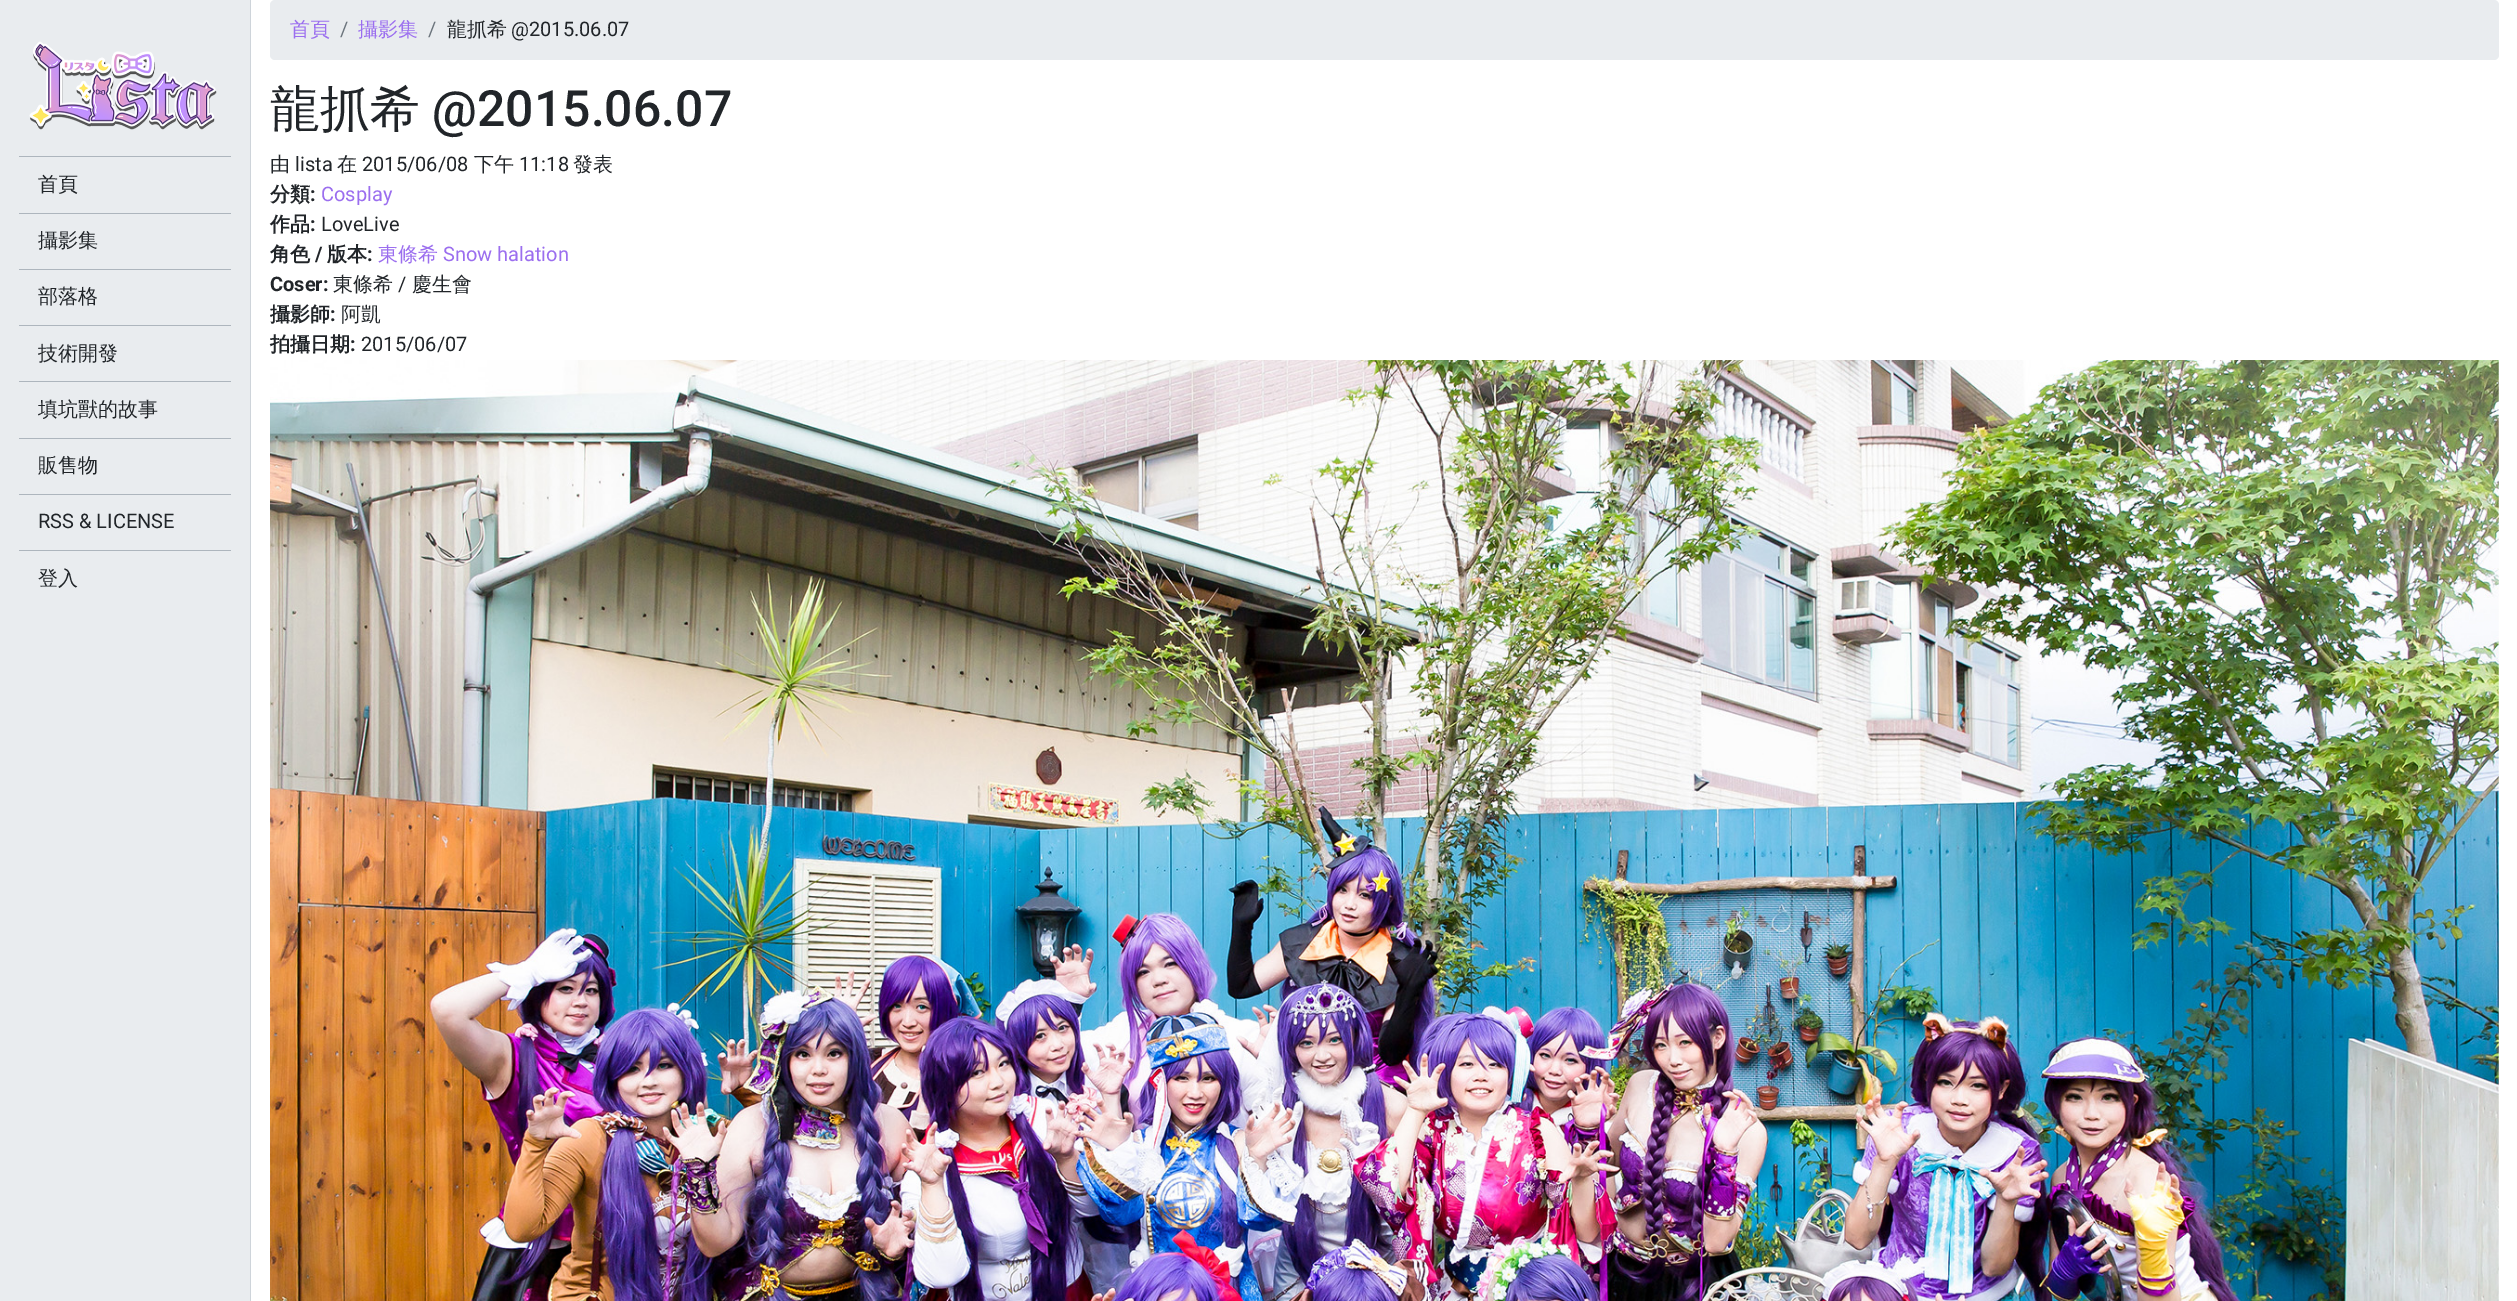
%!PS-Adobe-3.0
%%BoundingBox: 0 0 2517 1301
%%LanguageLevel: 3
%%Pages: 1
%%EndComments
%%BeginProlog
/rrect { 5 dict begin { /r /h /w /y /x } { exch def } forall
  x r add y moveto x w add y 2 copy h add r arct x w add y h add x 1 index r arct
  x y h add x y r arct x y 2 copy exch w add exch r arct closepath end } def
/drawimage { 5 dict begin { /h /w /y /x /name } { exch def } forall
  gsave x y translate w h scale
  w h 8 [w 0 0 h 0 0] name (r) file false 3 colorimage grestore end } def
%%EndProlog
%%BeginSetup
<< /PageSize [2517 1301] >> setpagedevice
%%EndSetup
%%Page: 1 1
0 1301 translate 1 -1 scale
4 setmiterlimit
1 setgray
0 0 2517 1301 rectfill
0.914 0.925 0.937 setrgbcolor
0 0 250 1301 rectfill
0.808 0.831 0.855 setrgbcolor
250 0 1 1301 rectfill
(images/1.raw) 29 41 188 89 drawimage
0.678 0.71 0.741 setrgbcolor
19 156 212 1 rectfill
19 213 212 1 rectfill
19 269 212 1 rectfill
19 325 212 1 rectfill
19 381 212 1 rectfill
19 438 212 1 rectfill
19 494 212 1 rectfill
19 550 212 1 rectfill
0.914 0.925 0.937 setrgbcolor
270 0 2229 60 5 rrect fill
(images/2.raw) 270 360 2229 941 drawimage
/WenQuanYiZenHei-Medium [20 0 0 -20 0 0] selectfont
0.129 0.145 0.161 setrgbcolor
38 191 moveto (首頁) show
38 247 moveto (攝影集) show
38 303 moveto (部落格) show
38 360 moveto (技術開發) show
38 416 moveto (填坑獸的故事) show
38 472 moveto (販售物) show
/Roboto-Regular [20 0 0 -20 0 0] selectfont
38 528 moveto (RSS & LICENSE) show
/WenQuanYiZenHei-Medium [20 0 0 -20 0 0] selectfont
38 585 moveto (登入) show
0.608 0.431 0.937 setrgbcolor
290 36 moveto (首頁) show
/Roboto-Regular [20 0 0 -20 0 0] selectfont
0.424 0.459 0.49 setrgbcolor
340 36 moveto (/) show
/WenQuanYiZenHei-Medium [20 0 0 -20 0 0] selectfont
0.608 0.431 0.937 setrgbcolor
358 36 moveto (攝影集) show
/Roboto-Regular [20 0 0 -20 0 0] selectfont
0.424 0.459 0.49 setrgbcolor
428 36 moveto (/) show
/WenQuanYiZenHei-Medium [20 0 0 -20 0 0] selectfont
0.129 0.145 0.161 setrgbcolor
447 36 moveto (龍抓希) show
/Roboto-Regular [20 0 0 -20 0 0] selectfont
511 36 moveto (@2015.06.07) show
/WenQuanYiZenHei-Medium [50 0 0 -50 0 0] selectfont
270 126 moveto (龍抓希) show
/Roboto-Medium [50 0 0 -50 0 0] selectfont
432 126 moveto (@2015.06.07) show
/WenQuanYiZenHei-Medium [20 0 0 -20 0 0] selectfont
270 171 moveto (由) show
/Roboto-Regular [20 0 0 -20 0 0] selectfont
295 171 moveto (lista) show
/WenQuanYiZenHei-Medium [20 0 0 -20 0 0] selectfont
337 171 moveto (在) show
/Roboto-Regular [20 0 0 -20 0 0] selectfont
362 171 moveto (2015/06/08) show
/WenQuanYiZenHei-Medium [20 0 0 -20 0 0] selectfont
474 171 moveto (下午) show
/Roboto-Regular [20 0 0 -20 0 0] selectfont
519 171 moveto (11:18) show
/WenQuanYiZenHei-Medium [20 0 0 -20 0 0] selectfont
573 171 moveto (發表) show
/WenQuanYiZenHei-Bold [20 0 0 -20 0 0] selectfont
270 201 moveto (分類) show
/Roboto-Bold [20 0 0 -20 0 0] selectfont
310 201 moveto (:) show
/Roboto-Regular [20 0 0 -20 0 0] selectfont
0.608 0.431 0.937 setrgbcolor
321 201 moveto (Cosplay) show
/WenQuanYiZenHei-Bold [20 0 0 -20 0 0] selectfont
0.129 0.145 0.161 setrgbcolor
270 231 moveto (作品) show
/Roboto-Bold [20 0 0 -20 0 0] selectfont
310 231 moveto (:) show
/Roboto-Regular [20 0 0 -20 0 0] selectfont
321 231 moveto (LoveLive) show
/WenQuanYiZenHei-Bold [20 0 0 -20 0 0] selectfont
270 261 moveto (角色) show
/Roboto-Bold [20 0 0 -20 0 0] selectfont
315 261 moveto (/) show
/WenQuanYiZenHei-Bold [20 0 0 -20 0 0] selectfont
327 261 moveto (版本) show
/Roboto-Bold [20 0 0 -20 0 0] selectfont
367 261 moveto (:) show
/WenQuanYiZenHei-Medium [20 0 0 -20 0 0] selectfont
0.608 0.431 0.937 setrgbcolor
378 261 moveto (東條希) show
/Roboto-Regular [20 0 0 -20 0 0] selectfont
443 261 moveto (Snow halation) show
/Roboto-Bold [20 0 0 -20 0 0] selectfont
0.129 0.145 0.161 setrgbcolor
270 291 moveto (Coser:) show
/WenQuanYiZenHei-Medium [20 0 0 -20 0 0] selectfont
333 291 moveto (東條希) show
/Roboto-Regular [20 0 0 -20 0 0] selectfont
398 291 moveto (/) show
/WenQuanYiZenHei-Medium [20 0 0 -20 0 0] selectfont
412 291 moveto (慶生會) show
/WenQuanYiZenHei-Bold [20 0 0 -20 0 0] selectfont
270 321 moveto (攝影師) show
/Roboto-Bold [20 0 0 -20 0 0] selectfont
330 321 moveto (:) show
/WenQuanYiZenHei-Medium [20 0 0 -20 0 0] selectfont
341 321 moveto (阿凱) show
/WenQuanYiZenHei-Bold [20 0 0 -20 0 0] selectfont
270 351 moveto (拍攝日期) show
/Roboto-Bold [20 0 0 -20 0 0] selectfont
350 351 moveto (:) show
/Roboto-Regular [20 0 0 -20 0 0] selectfont
361 351 moveto (2015/06/07) show
showpage
%%EOF
